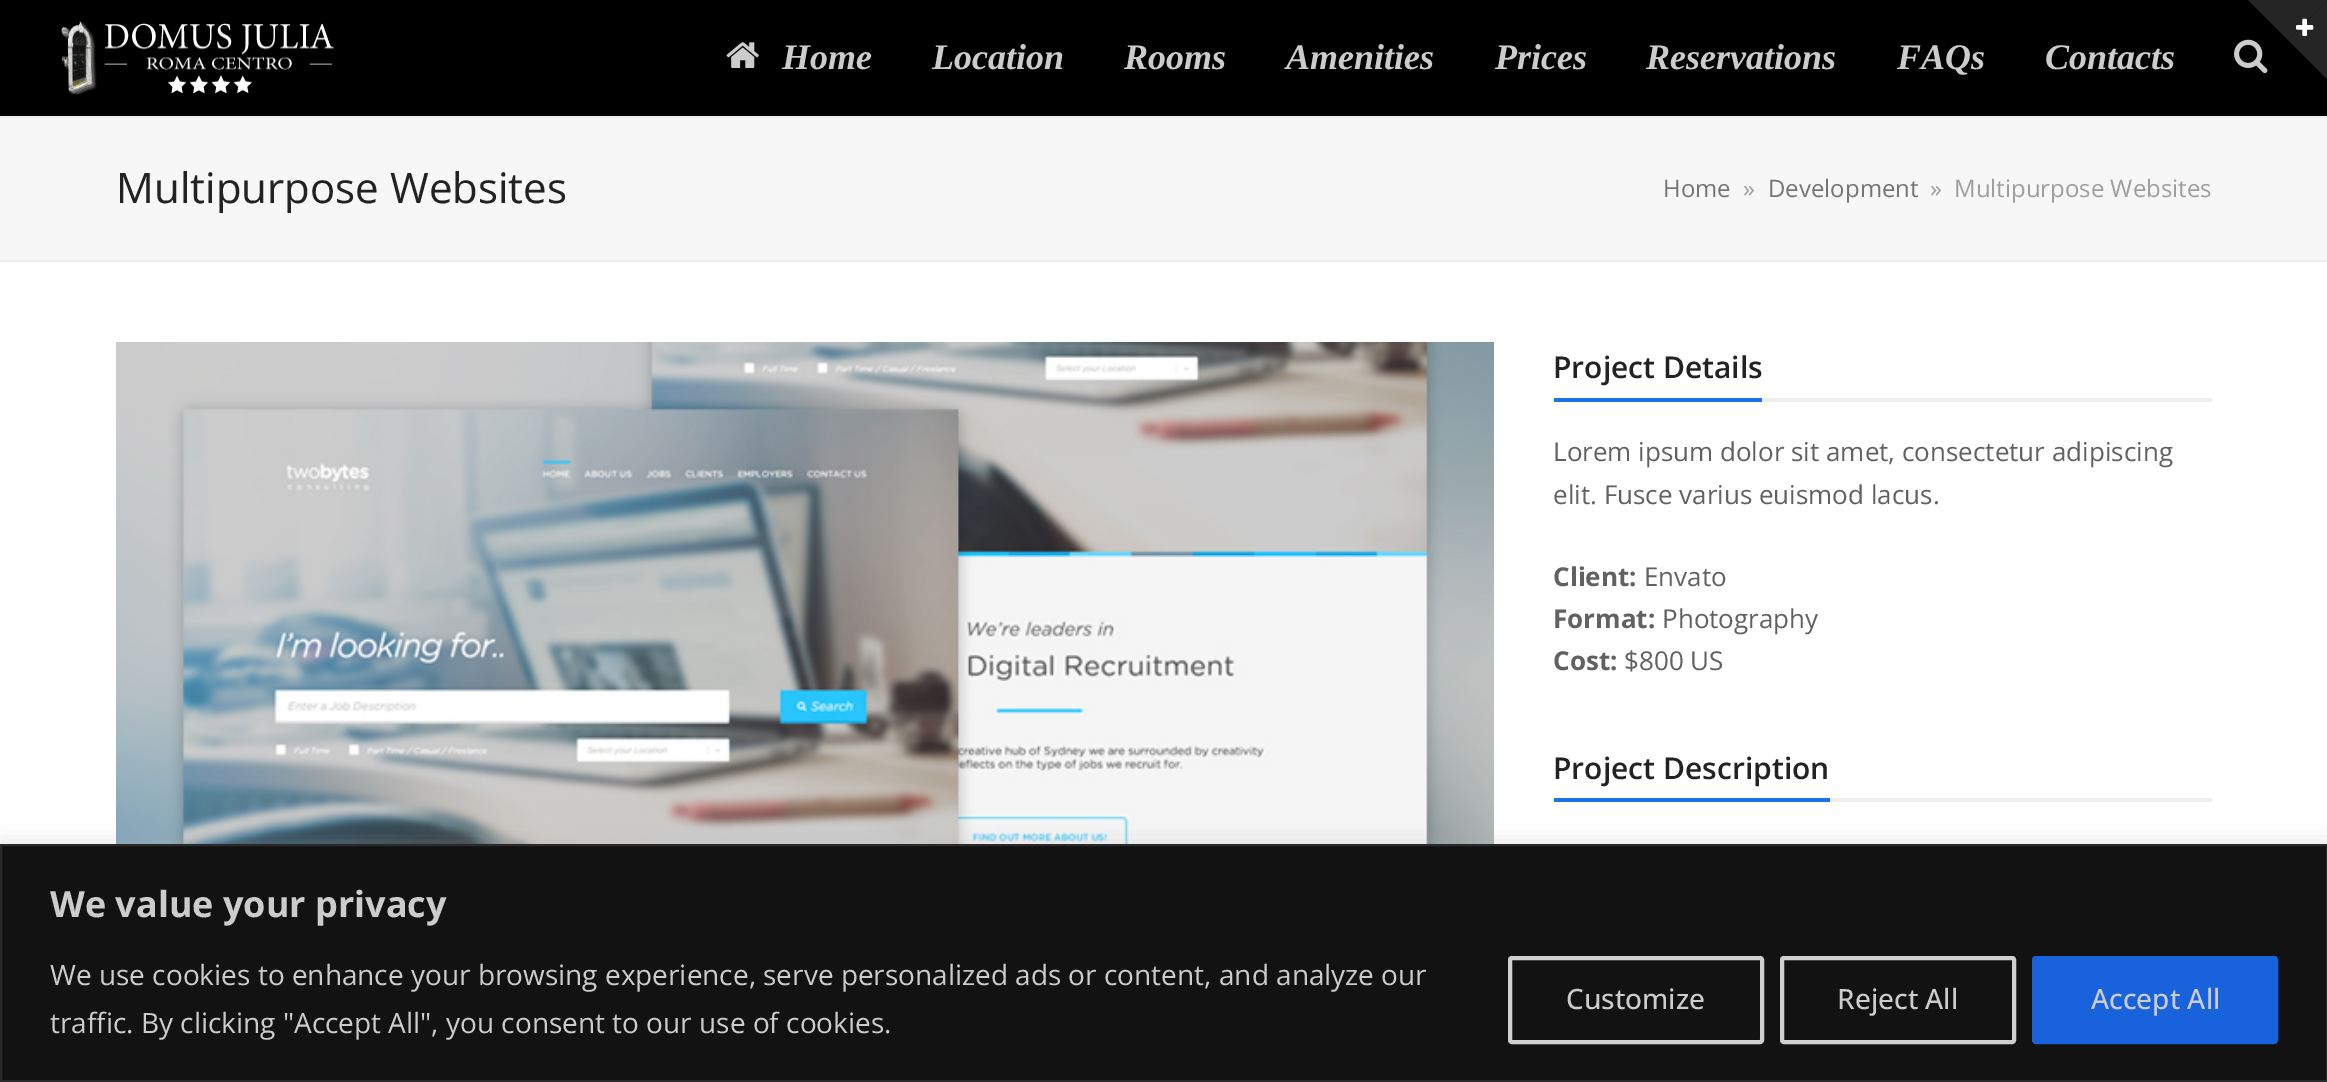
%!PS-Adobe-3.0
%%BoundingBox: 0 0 2327 1082
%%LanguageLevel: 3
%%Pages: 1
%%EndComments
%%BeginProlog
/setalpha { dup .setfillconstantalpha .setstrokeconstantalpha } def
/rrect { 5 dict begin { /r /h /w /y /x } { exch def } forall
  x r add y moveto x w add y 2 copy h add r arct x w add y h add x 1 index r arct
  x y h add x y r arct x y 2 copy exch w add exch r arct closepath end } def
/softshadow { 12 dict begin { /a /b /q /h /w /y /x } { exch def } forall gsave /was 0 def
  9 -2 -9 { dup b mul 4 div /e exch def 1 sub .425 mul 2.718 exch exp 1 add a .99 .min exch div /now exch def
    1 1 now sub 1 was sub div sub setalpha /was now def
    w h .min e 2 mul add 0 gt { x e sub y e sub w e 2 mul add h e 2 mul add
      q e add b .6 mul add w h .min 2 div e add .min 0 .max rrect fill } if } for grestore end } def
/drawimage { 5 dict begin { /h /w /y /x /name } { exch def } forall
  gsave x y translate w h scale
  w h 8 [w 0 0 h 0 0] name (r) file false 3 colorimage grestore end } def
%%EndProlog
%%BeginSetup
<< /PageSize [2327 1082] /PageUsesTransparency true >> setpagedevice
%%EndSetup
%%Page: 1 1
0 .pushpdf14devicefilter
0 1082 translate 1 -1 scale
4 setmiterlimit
1 setgray
0 0 2327 1082 rectfill
0 setgray
0 0 2327 116 rectfill
(images/1.raw) 61 21 273 73 drawimage
(images/2.raw) 726 42 33 26 drawimage
(images/3.raw) 2234 39 34 35 drawimage
0.969 setgray
0 118 2327 142 rectfill
0.933 setgray
0 116 2327 2 rectfill
0 260 2327 2 rectfill
(images/4.raw) 116 342 1378 502 drawimage
1762 398 450 4 rectfill
0.102 0.451 0.91 setrgbcolor
1554 398 208 4 rectfill
0.933 setgray
1830 798 382 4 rectfill
0.102 0.451 0.91 setrgbcolor
1554 798 276 4 rectfill
0.145 setgray
newpath 2248 0 moveto 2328 0 lineto 2288 40 lineto closepath fill
newpath 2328 0 moveto 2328 80 lineto 2288 40 lineto closepath fill
(images/5.raw) 2296 18 18 18 drawimage
0.675 0.671 0.671 setrgbcolor
0 842 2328 238 0 10 0.3 softshadow
0.071 setgray
newpath 1 845 moveto 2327 845 lineto 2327 1081 lineto 1 1081 lineto closepath gsave fill grestore
0.165 setgray
2 setlinewidth
stroke
0.816 setgray
4 setlinewidth
1510 958 252 84 2 rrect stroke
1782 958 232 84 2 rrect stroke
0.094 0.388 0.863 setrgbcolor
2034 958 242 84 2 rrect gsave fill grestore
stroke
/LiberationSerif-BoldItalic [36 0 0 -36 0 0] selectfont
0.8 setgray
782 69 moveto (Home) show
932 69 moveto (Location) show
1124 69 moveto (Rooms) show
1286 69 moveto (Amenities) show
1495 69 moveto (Prices) show
1646 69 moveto (Reservations) show
1897 69 moveto (FAQs) show
2045 69 moveto (Contacts) show
/OpenSans-Regular [42 0 0 -42 0 0] selectfont
0.133 setgray
116 203 moveto (Multipurpose Websites) show
/OpenSans-Regular [24 0 0 -24 0 0] selectfont
0.459 setgray
1663 197 moveto (Home) show
0.62 setgray
1743 197 moveto (») show
0.459 setgray
1768 197 moveto (Development) show
0.62 setgray
1930 197 moveto (») show
1954 197 moveto (Multipurpose Websites) show
/OpenSans-SemiBold [30 0 0 -30 0 0] selectfont
0.133 setgray
1553 378 moveto (Project Details) show
/OpenSans-Regular [26 0 0 -26 0 0] selectfont
0.38 setgray
1553 461 moveto (Lorem ipsum dolor sit amet, consectetur adipiscing) show
1553 504 moveto (elit. Fusce varius euismod lacus.) show
/OpenSans-Bold [26 0 0 -26 0 0] selectfont
1553 586 moveto (Client:) show
/OpenSans-Regular [26 0 0 -26 0 0] selectfont
1644 586 moveto (Envato) show
/OpenSans-Bold [26 0 0 -26 0 0] selectfont
1553 628 moveto (Format:) show
/OpenSans-Regular [26 0 0 -26 0 0] selectfont
1662 628 moveto (Photography) show
/OpenSans-Bold [26 0 0 -26 0 0] selectfont
1553 670 moveto (Cost:) show
/OpenSans-Regular [26 0 0 -26 0 0] selectfont
1624 670 moveto ($800 US) show
/OpenSans-SemiBold [30 0 0 -30 0 0] selectfont
0.133 setgray
1553 779 moveto (Project Description) show
/OpenSans-Bold [36 0 0 -36 0 0] selectfont
0.8 setgray
50 917 moveto (We value your privacy) show
/OpenSans-Regular [28 0 0 -28 0 0] selectfont
50 985 moveto (We use cookies to enhance your browsing experience, serve personalized ads or content, and analyze our) show
50 1033 moveto (traffic. By clicking "Accept All", you consent to our use of cookies.) show
/OpenSans-Medium [28 0 0 -28 0 0] selectfont
1566 1009 moveto (Customize) show
1837 1009 moveto (Reject All) show
2091 1009 moveto (Accept All) show
.poppdf14devicefilter showpage
%%EOF
